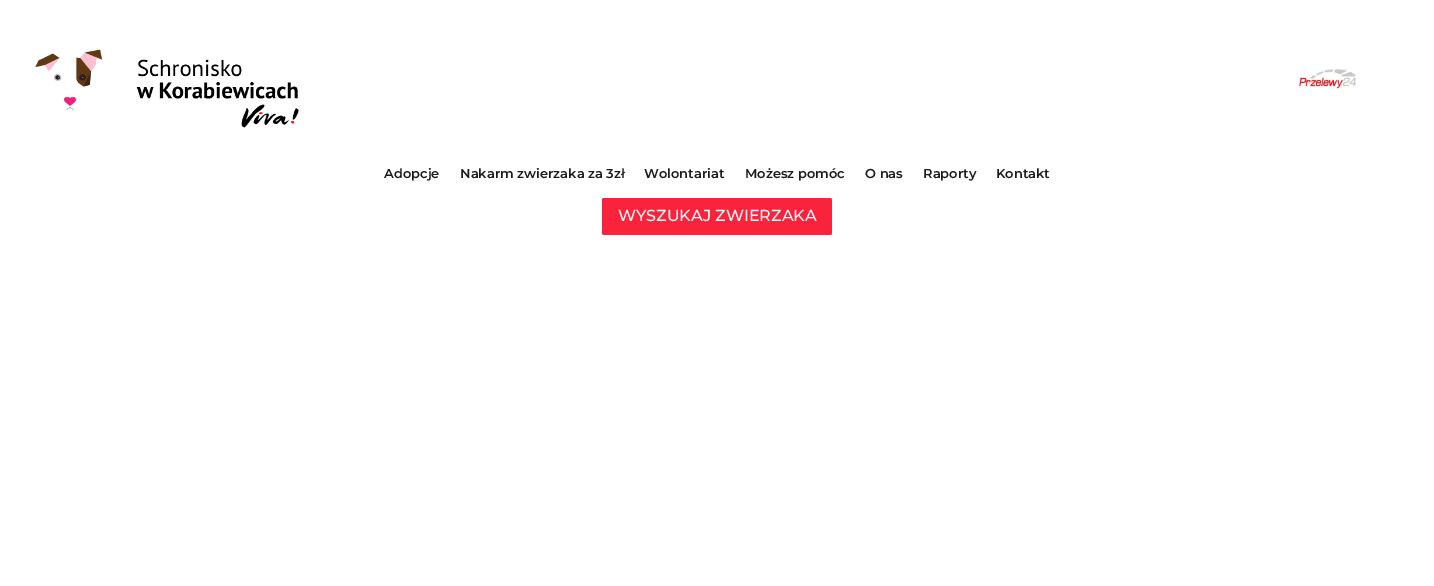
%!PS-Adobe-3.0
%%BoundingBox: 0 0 1434 586
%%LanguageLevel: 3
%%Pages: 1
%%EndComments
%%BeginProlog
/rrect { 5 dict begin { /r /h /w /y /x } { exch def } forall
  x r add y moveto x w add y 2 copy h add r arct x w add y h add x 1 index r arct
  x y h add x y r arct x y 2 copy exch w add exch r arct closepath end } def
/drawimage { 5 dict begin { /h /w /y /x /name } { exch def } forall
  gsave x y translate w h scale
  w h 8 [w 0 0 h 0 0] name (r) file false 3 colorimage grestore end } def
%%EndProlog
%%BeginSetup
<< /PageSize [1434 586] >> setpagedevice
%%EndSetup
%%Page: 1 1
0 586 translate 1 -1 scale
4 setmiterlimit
1 setgray
0 0 1434 586 rectfill
(images/1.raw) 35 49 264 79 drawimage
(images/2.raw) 1299 69 57 20 drawimage
0.984 0.133 0.235 setrgbcolor
602 198 230 37 2 rrect fill
603 234 228 1 rectfill
/Montserrat-SemiBold [13 0 0 -13 0 0] selectfont
0.102 0.114 0.118 setrgbcolor
384 178 moveto (Adopcje) show
460 178 moveto (Nakarm zwierzaka za 3zł) show
644 178 moveto (Wolontariat) show
745 178 moveto (Możesz pomóc) show
865 178 moveto (O nas) show
923 178 moveto (Raporty) show
996 178 moveto (Kontakt) show
/Montserrat-Medium [16 0 0 -16 0 0] selectfont
1 setgray
618 221 moveto (WYSZUKAJ ZWIERZAKA) show
showpage
%%EOF
